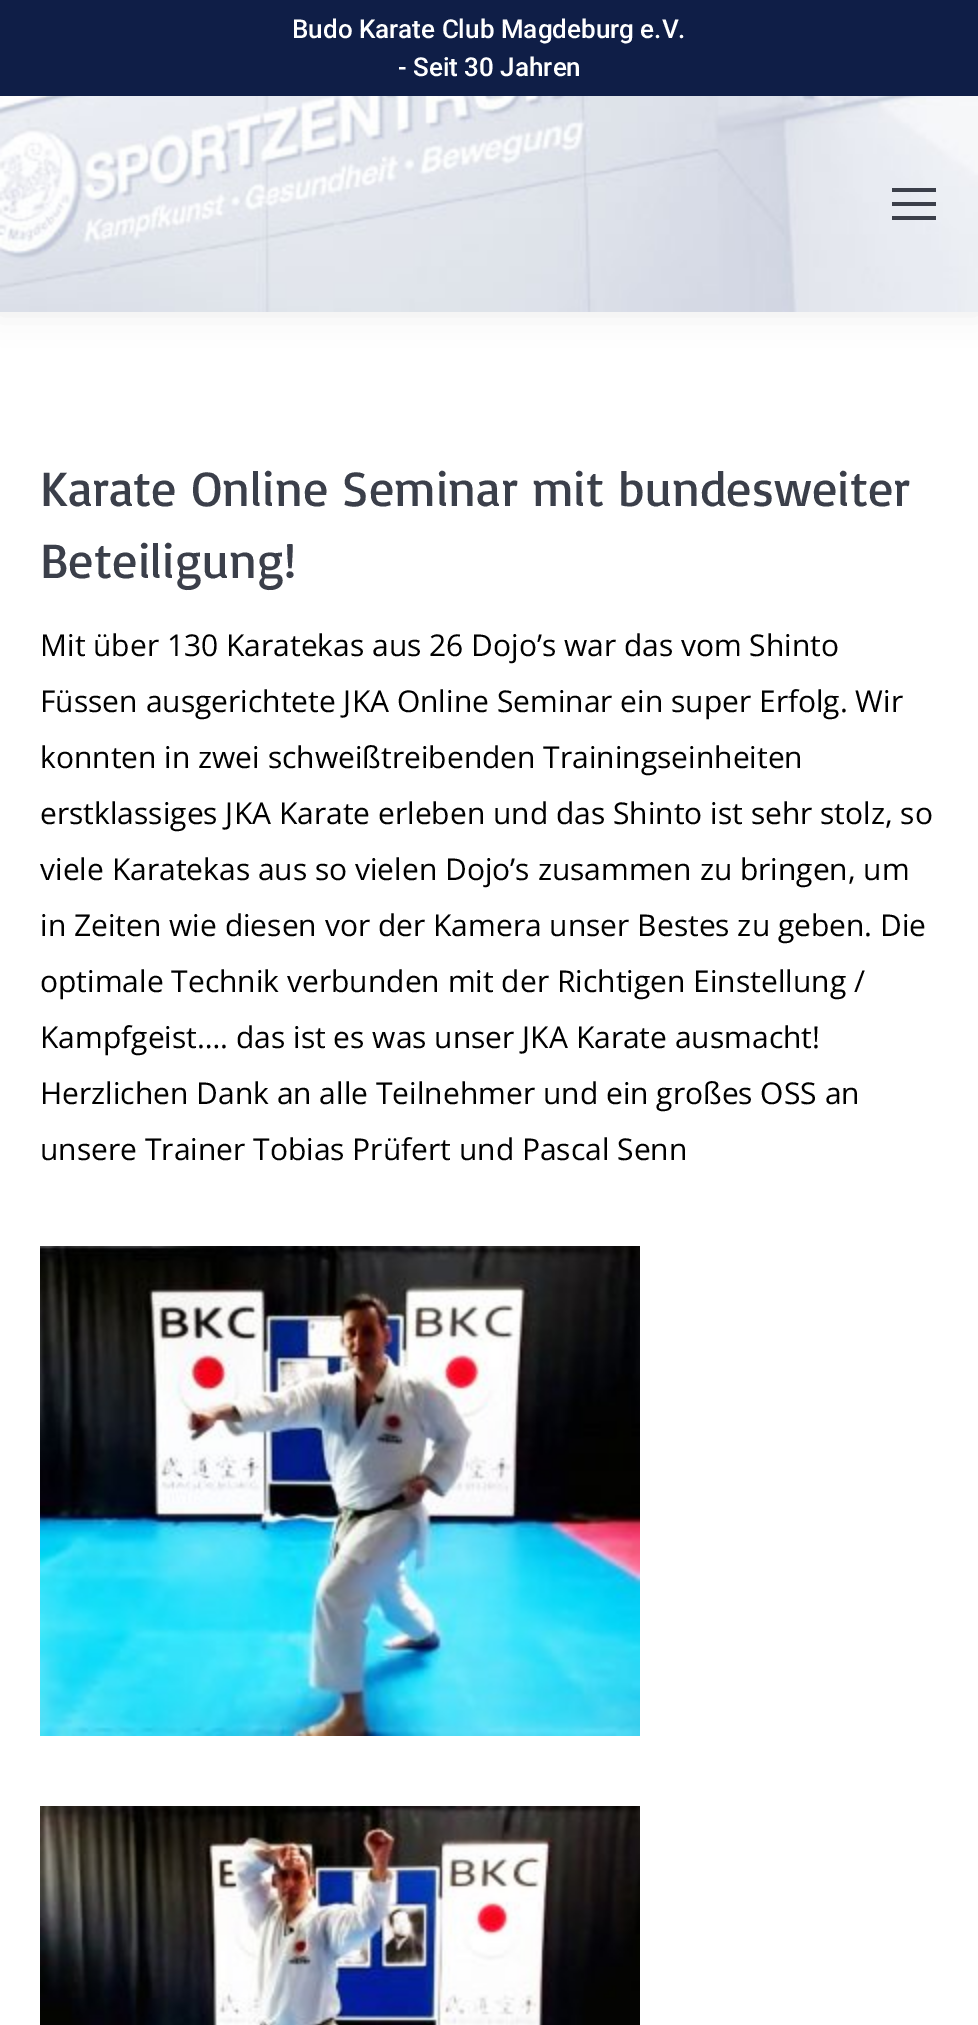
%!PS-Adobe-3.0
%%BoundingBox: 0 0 978 2025
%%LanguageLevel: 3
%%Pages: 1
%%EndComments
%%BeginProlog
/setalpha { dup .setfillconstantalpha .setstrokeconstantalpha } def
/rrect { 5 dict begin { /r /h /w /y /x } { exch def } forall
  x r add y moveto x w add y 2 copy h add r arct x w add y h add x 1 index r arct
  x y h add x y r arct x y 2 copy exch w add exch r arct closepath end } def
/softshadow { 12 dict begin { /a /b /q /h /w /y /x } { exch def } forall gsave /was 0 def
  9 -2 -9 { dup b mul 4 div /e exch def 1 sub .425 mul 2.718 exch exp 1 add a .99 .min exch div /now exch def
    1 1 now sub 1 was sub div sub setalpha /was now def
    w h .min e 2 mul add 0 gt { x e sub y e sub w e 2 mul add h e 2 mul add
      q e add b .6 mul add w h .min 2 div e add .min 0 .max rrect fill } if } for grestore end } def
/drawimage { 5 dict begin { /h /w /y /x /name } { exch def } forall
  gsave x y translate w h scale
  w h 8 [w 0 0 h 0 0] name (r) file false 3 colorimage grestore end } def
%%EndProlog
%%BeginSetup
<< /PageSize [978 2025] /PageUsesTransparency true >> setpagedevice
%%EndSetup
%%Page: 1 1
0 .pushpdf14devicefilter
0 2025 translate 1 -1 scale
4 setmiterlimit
1 setgray
0 0 978 2025 rectfill
0 setgray
-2 -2 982 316 0 15 0.07 softshadow
(images/1.raw) 0 96 978 216 drawimage
0.059 0.118 0.278 setrgbcolor
0 0 978 96 rectfill
0.231 0.247 0.29 setrgbcolor
892 188 44 4 rectfill
892 202 44 4 rectfill
892 216 44 4 rectfill
(images/2.raw) 40 1246 600 490 drawimage
(images/3.raw) 40 1806 600 219 drawimage
/Roboto-Medium [26 0 0 -26 0 0] selectfont
1 setgray
292 38 moveto (Budo Karate Club Magdeburg e.V.) show
398 76 moveto (- Seit 30 Jahren) show
/Basic-Regular [50 0 0 -50 0 0] selectfont
0.231 0.247 0.29 setrgbcolor
40 506 moveto (Karate Online Seminar mit bundesweiter) show
40 578 moveto (Beteiligung!) show
/OpenSans-Regular [30 0 0 -30 0 0] selectfont
0 setgray
40 656 moveto (Mit über 130 Karatekas aus 26 Dojo’s war das vom Shinto) show
40 712 moveto (Füssen ausgerichtete JKA Online Seminar ein super Erfolg. Wir) show
40 768 moveto (konnten in zwei schweißtreibenden Trainingseinheiten) show
40 824 moveto (erstklassiges JKA Karate erleben und das Shinto ist sehr stolz, so) show
40 880 moveto (viele Karatekas aus so vielen Dojo’s zusammen zu bringen, um) show
40 936 moveto (in Zeiten wie diesen vor der Kamera unser Bestes zu geben. Die) show
40 992 moveto (optimale Technik verbunden mit der Richtigen Einstellung /) show
40 1048 moveto (Kampfgeist…. das ist es was unser JKA Karate ausmacht!) show
40 1104 moveto (Herzlichen Dank an alle Teilnehmer und ein großes OSS an) show
40 1160 moveto (unsere Trainer Tobias Prüfert und Pascal Senn) show
.poppdf14devicefilter showpage
%%EOF
